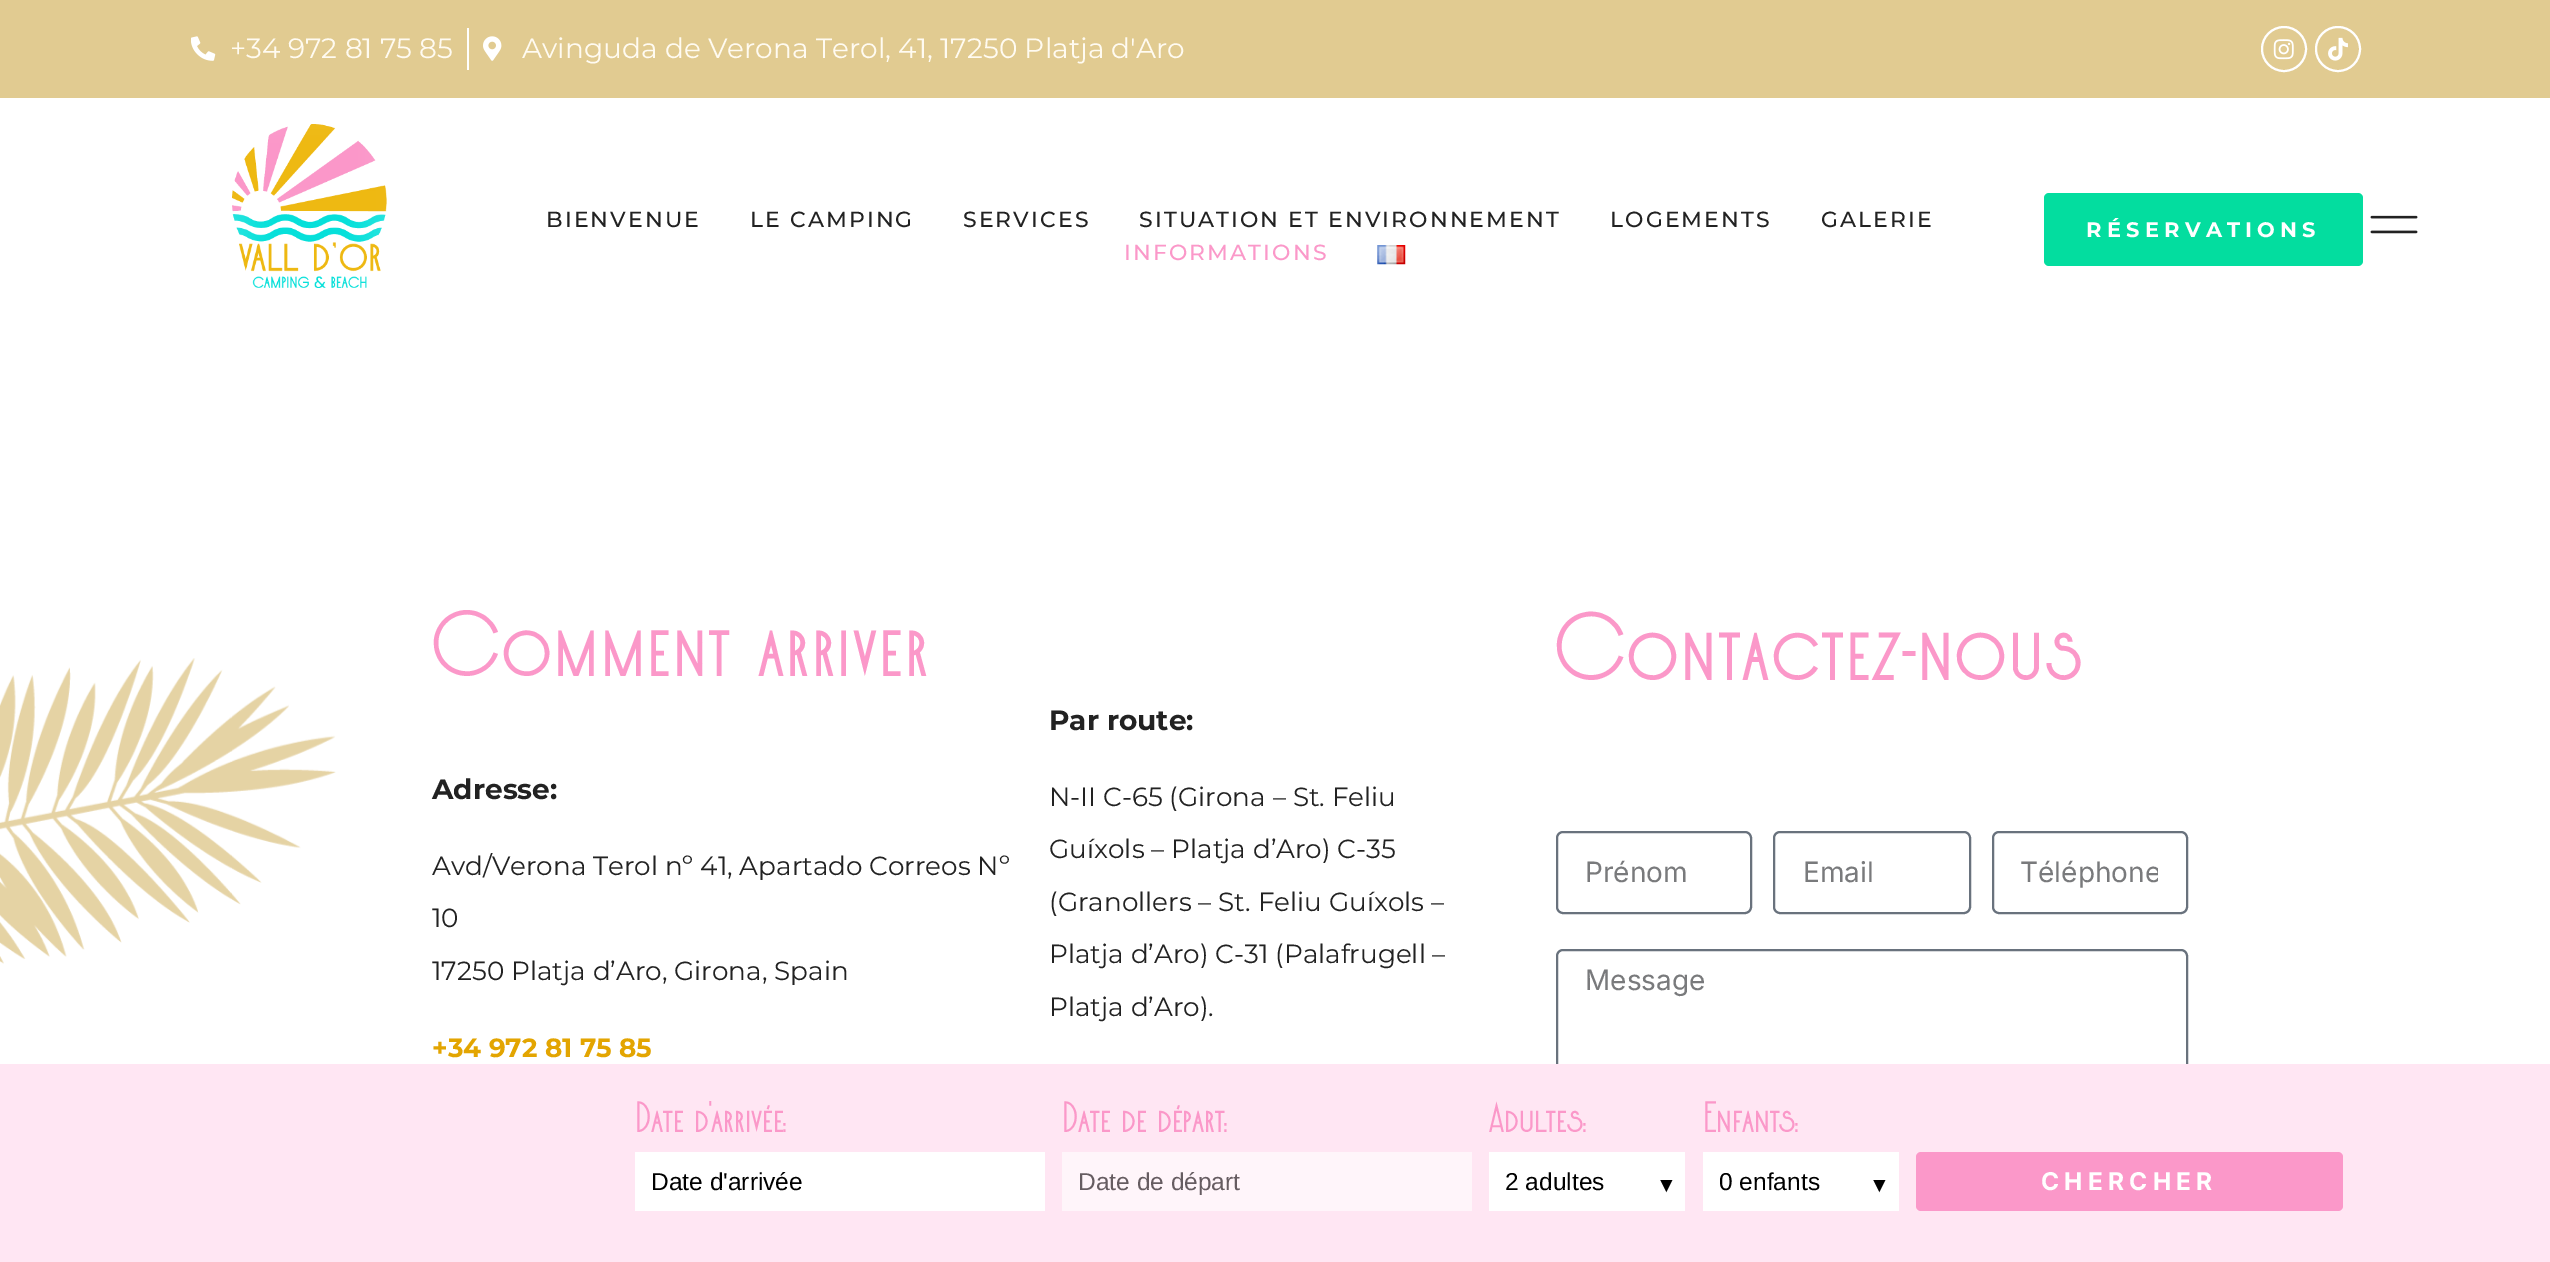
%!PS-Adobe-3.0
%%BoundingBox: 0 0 2550 1262
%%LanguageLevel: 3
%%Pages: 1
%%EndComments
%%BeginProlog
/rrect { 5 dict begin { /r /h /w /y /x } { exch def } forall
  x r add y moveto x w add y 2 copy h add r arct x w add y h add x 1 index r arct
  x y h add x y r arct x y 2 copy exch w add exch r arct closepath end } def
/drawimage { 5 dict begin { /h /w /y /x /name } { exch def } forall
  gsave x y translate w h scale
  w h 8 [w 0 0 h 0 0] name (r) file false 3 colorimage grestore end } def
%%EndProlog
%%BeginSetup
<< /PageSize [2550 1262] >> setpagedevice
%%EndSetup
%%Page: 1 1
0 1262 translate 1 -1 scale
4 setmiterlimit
1 setgray
0 0 2550 1262 rectfill
0.882 0.796 0.569 setrgbcolor
0 0 2550 98 rectfill
(images/1.raw) 191 36 25 25 drawimage
1 setgray
467 28 2 42 rectfill
(images/2.raw) 483 36 19 25 drawimage
2 setlinewidth
newpath 2284 49 22 0 360 arc closepath stroke
(images/3.raw) 2273 39 21 21 drawimage
newpath 2338 49 22 0 360 arc closepath stroke
(images/4.raw) 2328 37 20 24 drawimage
(images/5.raw) 232 124 155 164 drawimage
(images/6.raw) 1377 245 29 20 drawimage
0.012 0.867 0.624 setrgbcolor
2044 193 319 73 5 rrect fill
(images/7.raw) 2370 215 48 19 drawimage
(images/8.raw) 0 658 336 306 drawimage
0.412 0.447 0.49 setrgbcolor
1557 832 194 81 6 rrect stroke
1774 832 196 81 6 rrect stroke
1993 832 194 81 6 rrect stroke
1557 950 630 257 6 rrect stroke
1 0.902 0.953 setrgbcolor
0 1064 2550 198 rectfill
1 setgray
635 1152 410 59 rectfill
1 0.961 0.98 setrgbcolor
1062 1152 410 59 rectfill
1 setgray
1489 1152 196 59 rectfill
1703 1152 196 59 rectfill
0.984 0.596 0.788 setrgbcolor
1916 1152 427 59 5 rrect fill
/Montserrat-Regular [28 0 0 -28 0 0] selectfont
1 0.984 0.945 setrgbcolor
230 58 moveto (+34 972 81 75 85) show
522 58 moveto (Avinguda de Verona Terol, 41, 17250 Platja d'Aro) show
/Montserrat-Medium [21.9 0 0 -21.9 0 0] selectfont
0.133 setgray
546 227 moveto 2.1 0 (BIENVENUE) ashow
750 227 moveto 2.1 0 (LE CAMPING) ashow
963 227 moveto 2.1 0 (SERVICES) ashow
1139 227 moveto 2.1 0 (SITUATION ET ENVIRONNEMENT) ashow
1610 227 moveto 2.1 0 (LOGEMENTS) ashow
1821 227 moveto 2.1 0 (GALERIE) ashow
0.984 0.596 0.788 setrgbcolor
1124 260 moveto 2.1 0 (INFORMATIONS) ashow
/Montserrat-Bold [21 0 0 -21 0 0] selectfont
1 setgray
2086 237 moveto 5.25 0 (RÉSERVATIONS) ashow
/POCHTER-Regular [94.5 0 0 -94.5 0 0] selectfont
0.984 0.596 0.788 setrgbcolor
432 676 moveto 2.6 0 (Comment arriver) ashow
/Montserrat-Bold [28 0 0 -28 0 0] selectfont
0.133 setgray
432 799 moveto (Adresse:) show
/Montserrat-Regular [26.25 0 0 -26.25 0 0] selectfont
432 875 moveto (Avd/Verona Terol nº 41, Apartado Correos Nº) show
432 927 moveto (10) show
432 980 moveto (17250 Platja d’Aro, Girona, Spain) show
/Montserrat-Bold [26.25 0 0 -26.25 0 0] selectfont
0.89 0.647 0.004 setrgbcolor
432 1057 moveto (+34 972 81 75 85) show
/Montserrat-Bold [28 0 0 -28 0 0] selectfont
0.133 setgray
1049 730 moveto (Par route:) show
/Montserrat-Regular [26.25 0 0 -26.25 0 0] selectfont
1049 806 moveto (N-II C-65 \(Girona – St. Feliu) show
1049 858 moveto (Guíxols – Platja d’Aro\) C-35) show
1049 911 moveto (\(Granollers – St. Feliu Guíxols –) show
1049 963 moveto (Platja d’Aro\) C-31 \(Palafrugell –) show
1049 1016 moveto (Platja d’Aro\).) show
/POCHTER-Regular [98 0 0 -98 0 0] selectfont
0.984 0.596 0.788 setrgbcolor
1555 680 moveto 2.6 0 (Contactez-nous) ashow
/Inter-Regular [28 0 0 -28 0 0] selectfont
0.475 0.478 0.486 setrgbcolor
1585 882 moveto (Prénom) show
1803 882 moveto (Email) show
gsave
2021 854 137 35 rectclip
2020 882 moveto (Téléphone) show
grestore
1585 990 moveto (Message) show
/POCHTER-Regular [44 0 0 -44 0 0] selectfont
0.984 0.596 0.788 setrgbcolor
635 1132 moveto (Date d'arrivée:) show
/LiberationSans-Regular [24.5 0 0 -24.5 0 0] selectfont
0 setgray
651 1190 moveto (Date d'arrivée) show
/POCHTER-Regular [44 0 0 -44 0 0] selectfont
0.984 0.596 0.788 setrgbcolor
1062 1132 moveto (Date de départ:) show
/LiberationSans-Regular [24.5 0 0 -24.5 0 0] selectfont
0.4 0.361 0.38 setrgbcolor
1078 1190 moveto (Date de départ) show
/POCHTER-Regular [44 0 0 -44 0 0] selectfont
0.984 0.596 0.788 setrgbcolor
1489 1132 moveto (Adultes:) show
/LiberationSans-Regular [24.5 0 0 -24.5 0 0] selectfont
0 setgray
1505 1190 moveto (2 adultes) show
/LiberationSans-Regular [21 0 0 -21 0 0] selectfont
1656 1192 moveto (▼) show
/POCHTER-Regular [44 0 0 -44 0 0] selectfont
0.984 0.596 0.788 setrgbcolor
1703 1132 moveto (Enfants:) show
/LiberationSans-Regular [24.5 0 0 -24.5 0 0] selectfont
0 setgray
1719 1190 moveto (0 enfants) show
/LiberationSans-Regular [21 0 0 -21 0 0] selectfont
1869 1192 moveto (▼) show
/Inter-Bold [24.5 0 0 -24.5 0 0] selectfont
1 setgray
2041 1190 moveto 5.25 0 (CHERCHER) ashow
showpage
%%EOF
